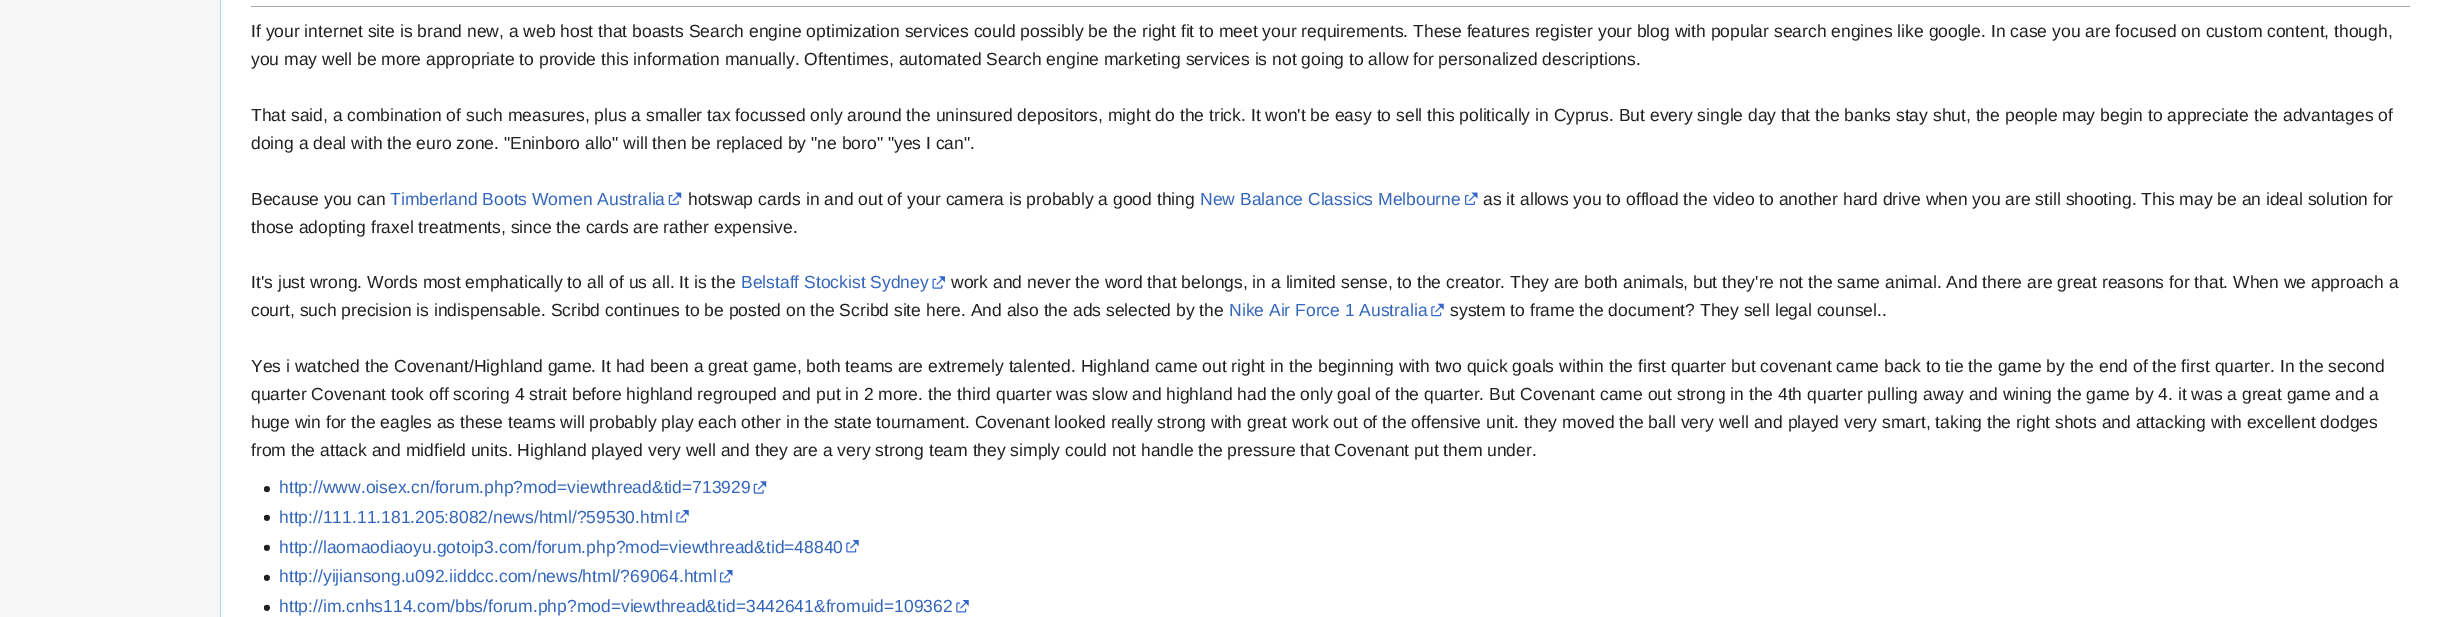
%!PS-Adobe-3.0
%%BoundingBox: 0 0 2440 617
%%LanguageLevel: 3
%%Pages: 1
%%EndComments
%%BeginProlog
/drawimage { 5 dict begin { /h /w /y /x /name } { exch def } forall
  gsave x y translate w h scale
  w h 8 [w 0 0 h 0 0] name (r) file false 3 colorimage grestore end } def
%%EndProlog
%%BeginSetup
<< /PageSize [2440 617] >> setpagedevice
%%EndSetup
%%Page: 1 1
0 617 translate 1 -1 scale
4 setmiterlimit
0.965 setgray
0 0 2440 617 rectfill
1 setgray
221 0 2219 617 rectfill
0.655 0.843 0.976 setrgbcolor
220 0 1 617 rectfill
0.635 0.663 0.694 setrgbcolor
251 6 2159 1 rectfill
(images/1.raw) 668 192 14 13 drawimage
(images/2.raw) 1465 192 13 13 drawimage
(images/3.raw) 932 276 13 13 drawimage
(images/4.raw) 1431 303 13 14 drawimage
(images/5.raw) 264 486 6 7 drawimage
(images/6.raw) 753 481 14 13 drawimage
(images/7.raw) 264 514 6 7 drawimage
(images/8.raw) 676 510 13 13 drawimage
(images/7.raw) 264 544 6 7 drawimage
(images/8.raw) 846 540 13 13 drawimage
(images/7.raw) 264 574 6 7 drawimage
(images/9.raw) 720 570 13 13 drawimage
(images/7.raw) 264 604 6 7 drawimage
(images/8.raw) 956 600 13 13 drawimage
/LiberationSans-Regular [17.5 0 0 -17.5 0 0] selectfont
0.125 0.129 0.133 setrgbcolor
251 37 moveto (If your internet site is brand new, a web host that boasts Search engine optimization services could possibly be the right fit to meet your requirements. These features register your blog with popular search engines like google. In case you are focused on custom content, though,) show
251 65 moveto (you may well be more appropriate to provide this information manually. Oftentimes, automated Search engine marketing services is not going to allow for personalized descriptions.) show
251 121 moveto (That said, a combination of such measures, plus a smaller tax focussed only around the uninsured depositors, might do the trick. It won't be easy to sell this politically in Cyprus. But every single day that the banks stay shut, the people may begin to appreciate the advantages of) show
251 149 moveto (doing a deal with the euro zone. "Eninboro allo" will then be replaced by "ne boro" "yes I can".) show
251 205 moveto (Because you can) show
0.2 0.4 0.733 setrgbcolor
390 205 moveto (Timberland Boots Women Australia) show
0.125 0.129 0.133 setrgbcolor
688 205 moveto (hotswap cards in and out of your camera is probably a good thing) show
0.2 0.4 0.733 setrgbcolor
1200 205 moveto (New Balance Classics Melbourne) show
0.125 0.129 0.133 setrgbcolor
1483 205 moveto (as it allows you to offload the video to another hard drive when you are still shooting. This may be an ideal solution for) show
251 233 moveto (those adopting fraxel treatments, since the cards are rather expensive.) show
251 288 moveto (It's just wrong. Words most emphatically to all of us all. It is the) show
0.2 0.4 0.733 setrgbcolor
741 288 moveto (Belstaff Stockist Sydney) show
0.125 0.129 0.133 setrgbcolor
951 288 moveto (work and never the word that belongs, in a limited sense, to the creator. They are both animals, but they're not the same animal. And there are great reasons for that. When we approach a) show
251 316 moveto (court, such precision is indispensable. Scribd continues to be posted on the Scribd site here. And also the ads selected by the) show
0.2 0.4 0.733 setrgbcolor
1229 316 moveto (Nike Air Force 1 Australia) show
0.125 0.129 0.133 setrgbcolor
1450 316 moveto (system to frame the document? They sell legal counsel..) show
251 372 moveto (Yes i watched the Covenant/Highland game. It had been a great game, both teams are extremely talented. Highland came out right in the beginning with two quick goals within the first quarter but covenant came back to tie the game by the end of the first quarter. In the second) show
251 400 moveto (quarter Covenant took off scoring 4 strait before highland regrouped and put in 2 more. the third quarter was slow and highland had the only goal of the quarter. But Covenant came out strong in the 4th quarter pulling away and wining the game by 4. it was a great game and a) show
251 428 moveto (huge win for the eagles as these teams will probably play each other in the state tournament. Covenant looked really strong with great work out of the offensive unit. they moved the ball very well and played very smart, taking the right shots and attacking with excellent dodges) show
251 456 moveto (from the attack and midfield units. Highland played very well and they are a very strong team they simply could not handle the pressure that Covenant put them under.) show
0.2 0.4 0.733 setrgbcolor
279 493 moveto (http://www.oisex.cn/forum.php?mod=viewthread&tid=713929) show
279 523 moveto (http://111.11.181.205:8082/news/html/?59530.html) show
279 553 moveto (http://laomaodiaoyu.gotoip3.com/forum.php?mod=viewthread&tid=48840) show
279 582 moveto (http://yijiansong.u092.iiddcc.com/news/html/?69064.html) show
279 612 moveto (http://im.cnhs114.com/bbs/forum.php?mod=viewthread&tid=3442641&fromuid=109362) show
showpage
%%EOF
